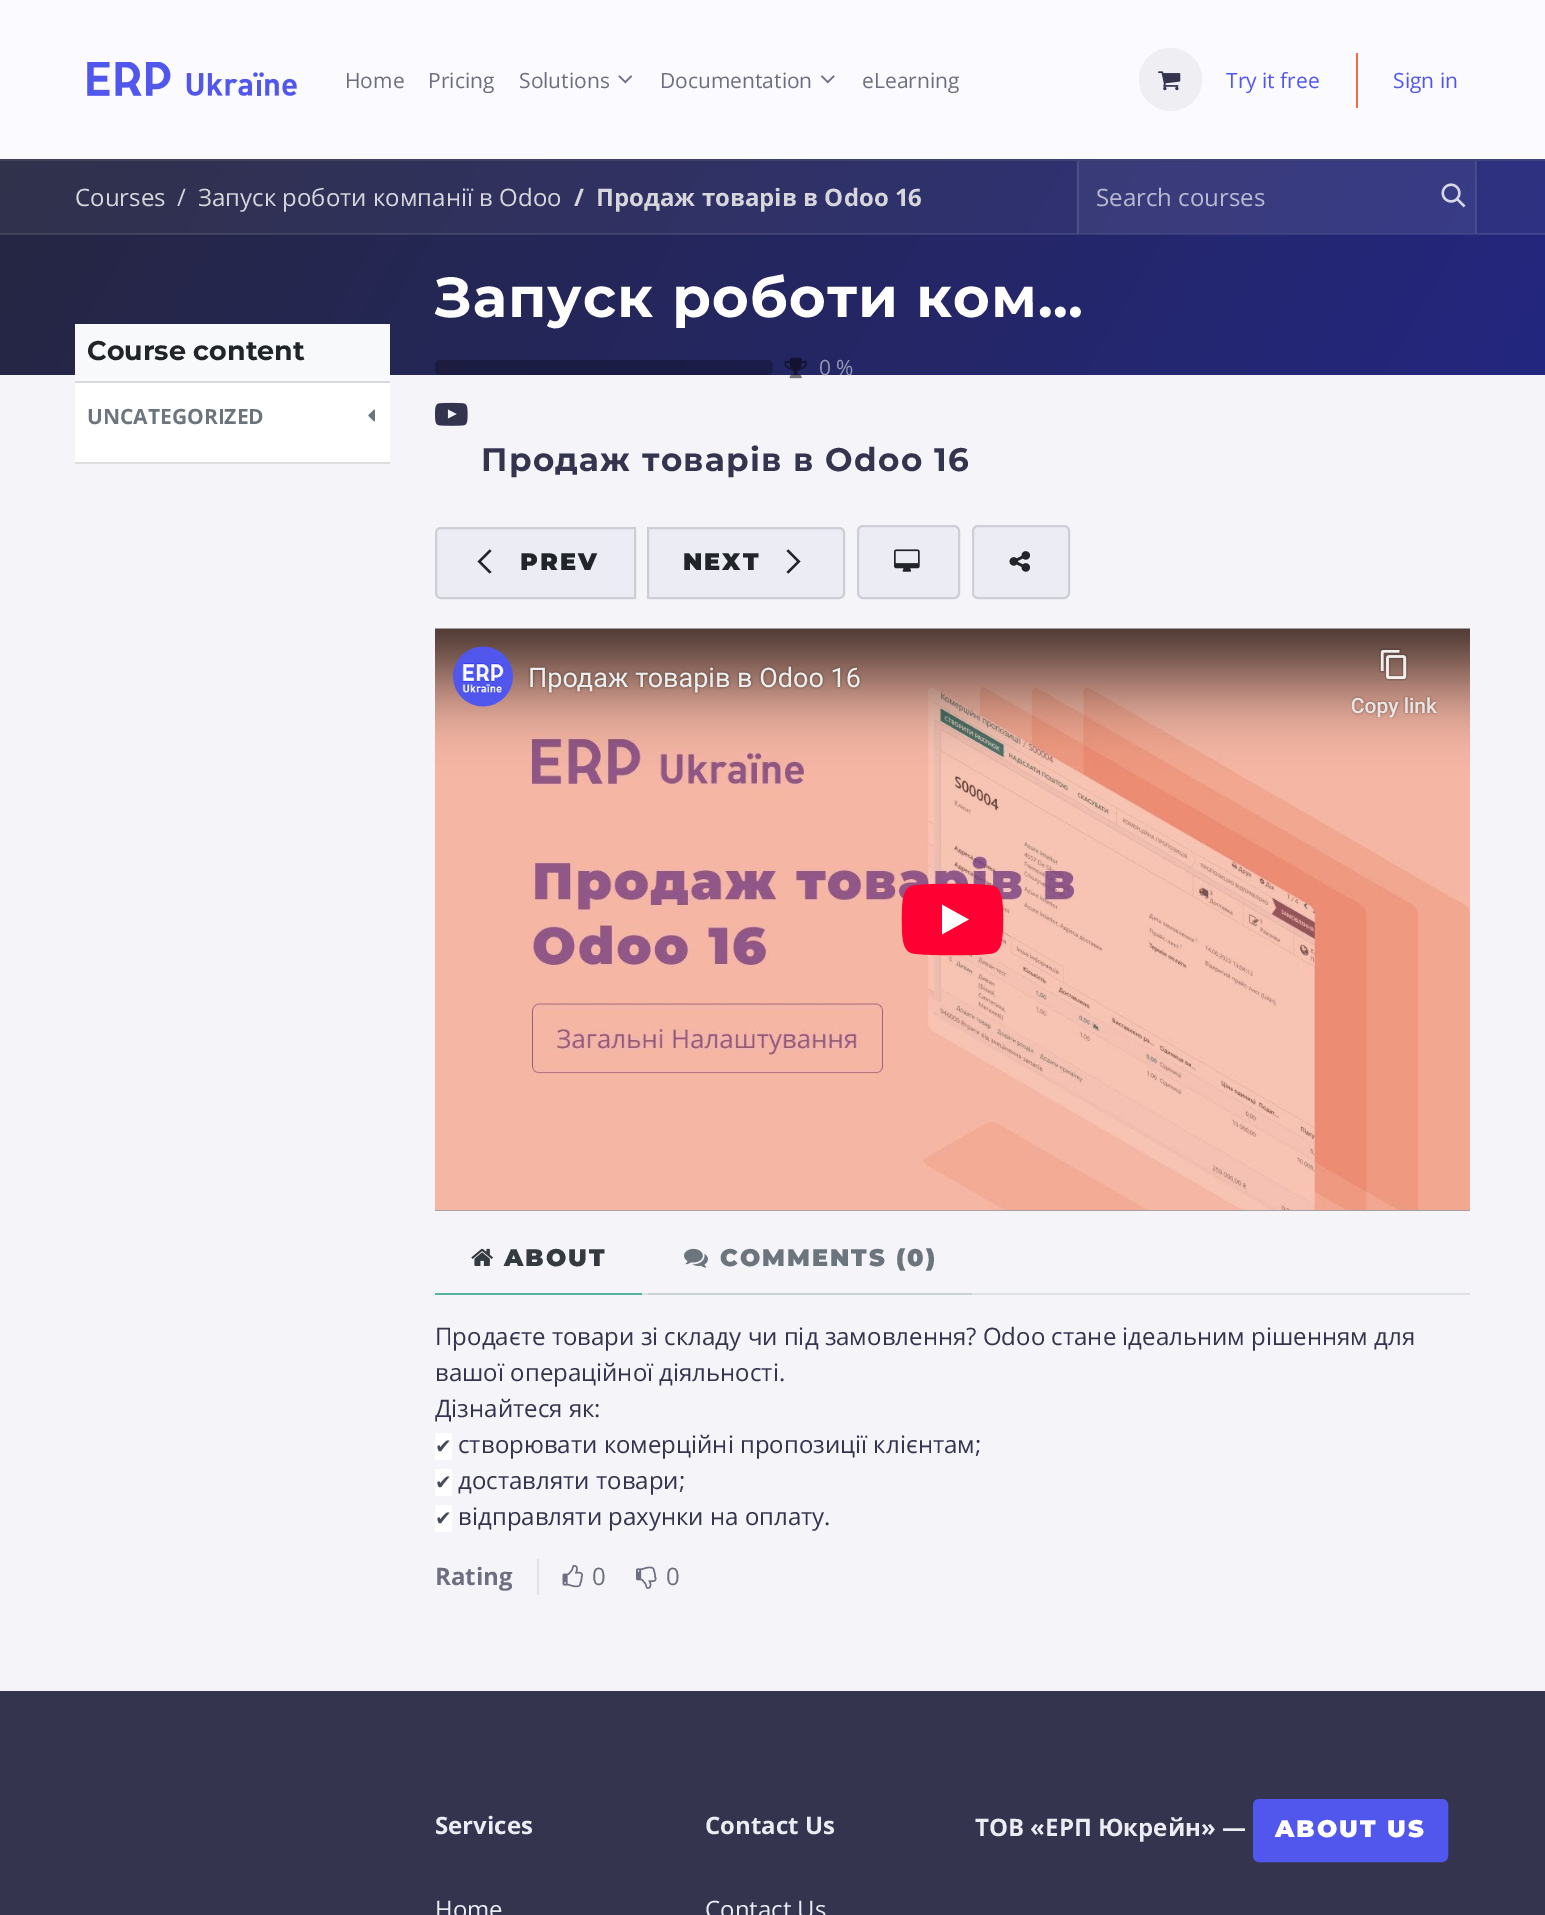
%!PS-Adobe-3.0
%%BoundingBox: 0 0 1545 1915
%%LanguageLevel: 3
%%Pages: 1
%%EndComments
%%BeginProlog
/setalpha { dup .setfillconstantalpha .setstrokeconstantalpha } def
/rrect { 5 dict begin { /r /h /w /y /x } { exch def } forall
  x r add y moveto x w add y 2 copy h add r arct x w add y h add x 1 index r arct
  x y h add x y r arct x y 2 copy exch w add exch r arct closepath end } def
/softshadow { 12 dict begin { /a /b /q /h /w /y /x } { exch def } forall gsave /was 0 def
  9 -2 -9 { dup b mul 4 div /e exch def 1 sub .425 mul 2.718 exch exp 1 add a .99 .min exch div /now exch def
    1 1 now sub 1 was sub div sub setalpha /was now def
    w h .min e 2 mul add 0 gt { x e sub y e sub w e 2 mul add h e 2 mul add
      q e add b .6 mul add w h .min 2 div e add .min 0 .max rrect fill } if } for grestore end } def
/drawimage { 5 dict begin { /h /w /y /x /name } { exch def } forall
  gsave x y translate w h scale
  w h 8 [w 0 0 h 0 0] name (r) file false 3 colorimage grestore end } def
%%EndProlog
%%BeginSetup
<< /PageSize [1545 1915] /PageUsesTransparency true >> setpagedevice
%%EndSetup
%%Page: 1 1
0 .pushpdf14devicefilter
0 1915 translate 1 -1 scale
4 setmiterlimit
0.984 0.98 0.996 setrgbcolor
0 0 1545 1915 rectfill
gsave newpath 0 161 moveto 1545 161 lineto 1545 233 lineto 0 233 lineto closepath clip newpath
<< /ShadingType 2 /ColorSpace /DeviceRGB /Coords [146 -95 1399 629] /Extend [true true] /Function << /FunctionType 2 /Domain [0 1] /C0 [0.192 0.192 0.294] /C1 [0.18 0.192 0.522] /N 1 >> >> shfill grestore
gsave newpath 1476 161 moveto 1477 161 lineto 1477 233 lineto 1476 233 lineto closepath clip newpath
<< /ShadingType 2 /ColorSpace /DeviceRGB /Coords [146 -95 1399 629] /Extend [true true] /Function << /FunctionType 2 /Domain [0 1] /C0 [0.275 0.275 0.365] /C1 [0.263 0.275 0.569] /N 1 >> >> shfill grestore
gsave newpath 1079 161 moveto 1475 161 lineto 1475 233 lineto 1079 233 lineto closepath clip newpath
<< /ShadingType 2 /ColorSpace /DeviceRGB /Coords [146 -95 1399 629] /Extend [true true] /Function << /FunctionType 2 /Domain [0 1] /C0 [0.231 0.231 0.329] /C1 [0.22 0.231 0.545] /N 1 >> >> shfill grestore
gsave newpath 1475 161 moveto 1476 161 lineto 1476 233 lineto 1475 233 lineto closepath clip newpath
<< /ShadingType 2 /ColorSpace /DeviceRGB /Coords [146 -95 1399 629] /Extend [true true] /Function << /FunctionType 2 /Domain [0 1] /C0 [0.31 0.31 0.396] /C1 [0.298 0.31 0.592] /N 1 >> >> shfill grestore
gsave newpath 0 159 moveto 1545 159 lineto 1545 161 lineto 0 161 lineto closepath clip newpath
<< /ShadingType 2 /ColorSpace /DeviceRGB /Coords [146 -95 1399 629] /Extend [true true] /Function << /FunctionType 2 /Domain [0 1] /C0 [0.275 0.275 0.365] /C1 [0.263 0.275 0.569] /N 1 >> >> shfill grestore
0.302 0.31 0.525 setrgbcolor
1077 161 2 72 rectfill
gsave
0 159 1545 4 rectclip
0 setgray
0 2 1545 159 0 2 0.1 softshadow
grestore
(images/1.raw) 87 62 210 34 drawimage
(images/2.raw) 618 75 15 9 drawimage
(images/3.raw) 820 75 15 9 drawimage
0.937 0.933 0.949 setrgbcolor
newpath 1170.5 79.5 31.5 0 360 arc closepath fill
(images/4.raw) 1158 71 23 20 drawimage
0.922 0.435 0.278 setrgbcolor
1356 53 2 55 rectfill
0.961 0.961 0.976 setrgbcolor
0 375 1545 1316 rectfill
gsave newpath 0 235 moveto 1545 235 lineto 1545 375 lineto 0 375 lineto closepath clip newpath
<< /ShadingType 2 /ColorSpace /DeviceRGB /Coords [146 -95 1399 629] /Extend [true true] /Function << /FunctionType 2 /Domain [0 1] /C0 [0.149 0.149 0.255] /C1 [0.137 0.149 0.498] /N 1 >> >> shfill grestore
gsave newpath 0 234 moveto 1545 234 lineto 1545 235 lineto 0 235 lineto closepath clip newpath
<< /ShadingType 2 /ColorSpace /DeviceRGB /Coords [146 -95 1399 629] /Extend [true true] /Function << /FunctionType 2 /Domain [0 1] /C0 [0.235 0.235 0.329] /C1 [0.224 0.235 0.549] /N 1 >> >> shfill grestore
gsave newpath 0 233 moveto 1545 233 lineto 1545 234 lineto 0 234 lineto closepath clip newpath
<< /ShadingType 2 /ColorSpace /DeviceRGB /Coords [146 -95 1399 629] /Extend [true true] /Function << /FunctionType 2 /Domain [0 1] /C0 [0.275 0.275 0.365] /C1 [0.263 0.275 0.569] /N 1 >> >> shfill grestore
(images/5.raw) 1441 183 25 25 drawimage
0.25 setalpha
0 setgray
435 360 338 15 6 rrect fill
1 setalpha
(images/6.raw) 784 357 23 22 drawimage
1 setgray
75 383 315 79 rectfill
0.871 0.871 0.875 setrgbcolor
75 462 315 2 rectfill
0.973 0.976 0.98 setrgbcolor
75 324 315 57 rectfill
0.847 0.851 0.859 setrgbcolor
75 381 315 2 rectfill
(images/7.raw) 368 409 7 13 drawimage
(images/8.raw) 435 402 33 24 drawimage
0.925 0.925 0.957 setrgbcolor
newpath 441 528 moveto 635 528 lineto 635 598 lineto 441 598 lineto 438 598 436 596 436 593 curveto 436 533 lineto 436 530 438 528 441 528 curveto closepath gsave fill grestore
0.808 0.808 0.839 setrgbcolor
2 setlinewidth
stroke
0.129 0.145 0.161 setrgbcolor
newpath 477.5 561.5 moveto 489.5 549.5 lineto 491.5 551 lineto 481 561.5 lineto 491.5 572 lineto 489.5 573.5 lineto closepath fill
0.925 0.925 0.957 setrgbcolor
newpath 648 528 moveto 839 528 lineto 842 528 844 530 844 533 curveto 844 593 lineto 844 596 842 598 839 598 curveto 648 598 lineto closepath gsave fill grestore
0.808 0.808 0.839 setrgbcolor
stroke
0.129 0.145 0.161 setrgbcolor
newpath 800.5 561.5 moveto 788.5 573.5 lineto 786.5 572 lineto 797 561.5 lineto 786.5 551 lineto 788.5 549.5 lineto closepath fill
0.925 0.925 0.957 setrgbcolor
858 526 101 72 5 rrect gsave fill grestore
0.808 0.808 0.839 setrgbcolor
stroke
(images/9.raw) 894 549 26 23 drawimage
0.925 0.925 0.957 setrgbcolor
973 526 96 72 5 rrect gsave fill grestore
0.808 0.808 0.839 setrgbcolor
stroke
(images/10.raw) 1009 551 22 21 drawimage
(images/11.raw) 435 628 1035 583 drawimage
0.871 0.886 0.902 setrgbcolor
642 1293 828 2 rectfill
0.333 0.698 0.635 setrgbcolor
435 1293 207 2 rectfill
(images/12.raw) 471 1248 22 18 drawimage
0.804 0.824 0.839 setrgbcolor
648 1293 324 2 rectfill
(images/13.raw) 684 1248 24 20 drawimage
1 setgray
435 1433 17 27 rectfill
435 1469 17 27 rectfill
435 1505 17 27 rectfill
0.882 0.882 0.906 setrgbcolor
537 1559 2 36 rectfill
(images/14.raw) 562 1564 21 24 drawimage
(images/15.raw) 636 1566 21 23 drawimage
0.204 0.204 0.31 setrgbcolor
0 1691 1545 224 rectfill
0.318 0.341 0.929 setrgbcolor
1255.5 1801.5 190 58 3.5 rrect gsave fill grestore
5 setlinewidth
stroke
/OpenSans-Regular [21 0 0 -21 0 0] selectfont
0.431 0.431 0.51 setrgbcolor
345 88 moveto (Home) show
428 88 moveto (Pricing) show
519 88 moveto (Solutions) show
660 88 moveto (Documentation) show
862 88 moveto (eLearning) show
0.318 0.341 0.929 setrgbcolor
1226 88 moveto (Try it free) show
1393 88 moveto (Sign in) show
/OpenSans-Regular [24 0 0 -24 0 0] selectfont
0.839 0.839 0.863 setrgbcolor
75 206 moveto (Courses) show
177 206 moveto (/) show
198 206 moveto (Запуск роботи компанії в Odoo) show
/OpenSans-Bold [24 0 0 -24 0 0] selectfont
574 206 moveto (/) show
596 206 moveto (Продаж товарів в Odoo 16) show
/OpenSans-Regular [24 0 0 -24 0 0] selectfont
0.722 0.725 0.816 setrgbcolor
1096 206 moveto (Search courses) show
/Montserrat-Bold [56.25 0 0 -56.25 0 0] selectfont
1 setgray
435 317 moveto 1.1 0 (Запуск роботи ком…) ashow
/OpenSans-Regular [21 0 0 -21 0 0] selectfont
0.584 0.588 0.706 setrgbcolor
819 375 moveto (0) show
836 375 moveto (%) show
/Montserrat-Bold [27 0 0 -27 0 0] selectfont
0.129 0.145 0.161 setrgbcolor
87 360 moveto (Course content) show
/OpenSans-Bold [21 0 0 -21 0 0] selectfont
0.424 0.459 0.49 setrgbcolor
87 424 moveto (UNCATEGORIZED) show
/Montserrat-Bold [32.6 0 0 -32.6 0 0] selectfont
0.204 0.204 0.31 setrgbcolor
481 471 moveto 1.3 0 (Продаж товарів в Odoo 16) ashow
/Montserrat-Black [24 0 0 -24 0 0] selectfont
0.129 0.145 0.161 setrgbcolor
520 570 moveto 2 0 (PREV) ashow
683 570 moveto 2 0 (NEXT) ashow
0.204 0.227 0.251 setrgbcolor
504 1266 moveto 2 0 (ABOUT) ashow
0.424 0.459 0.49 setrgbcolor
720 1266 moveto 2 0 (COMMENTS \(0\)) ashow
/OpenSans-Regular [24 0 0 -24 0 0] selectfont
0.204 0.204 0.31 setrgbcolor
435 1345 moveto (Продаєте товари зі складу чи під замовлення? Odoo стане ідеальним рішенням для) show
435 1381 moveto (вашої операційної діяльності.) show
435 1417 moveto (Дізнайтеся як:) show
/DejaVuSans-Regular [20 0 0 -20 0 0] selectfont
0.267 0.294 0.353 setrgbcolor
435 1453 moveto (✔) show
/OpenSans-Regular [24 0 0 -24 0 0] selectfont
0.204 0.204 0.31 setrgbcolor
458 1453 moveto (створювати комерційні пропозиції клієнтам;) show
/DejaVuSans-Regular [20 0 0 -20 0 0] selectfont
0.267 0.294 0.353 setrgbcolor
435 1489 moveto (✔) show
/OpenSans-Regular [24 0 0 -24 0 0] selectfont
0.204 0.204 0.31 setrgbcolor
458 1489 moveto (доставляти товари;) show
/DejaVuSans-Regular [20 0 0 -20 0 0] selectfont
0.267 0.294 0.353 setrgbcolor
435 1525 moveto (✔) show
/OpenSans-Regular [24 0 0 -24 0 0] selectfont
0.204 0.204 0.31 setrgbcolor
458 1525 moveto (відправляти рахунки на оплату.) show
/OpenSans-Bold [24 0 0 -24 0 0] selectfont
0.431 0.431 0.51 setrgbcolor
435 1585 moveto (Rating) show
/OpenSans-Regular [24 0 0 -24 0 0] selectfont
592 1585 moveto (0) show
666 1585 moveto (0) show
/OpenSans-Bold [24 0 0 -24 0 0] selectfont
0.925 0.925 0.957 setrgbcolor
435 1834 moveto (Services) show
/OpenSans-Regular [24 0 0 -24 0 0] selectfont
435 1918 moveto (Home) show
/OpenSans-Bold [24 0 0 -24 0 0] selectfont
705 1834 moveto (Contact Us) show
/OpenSans-Regular [24 0 0 -24 0 0] selectfont
705 1918 moveto (Contact Us) show
/OpenSans-Bold [24 0 0 -24 0 0] selectfont
975 1836 moveto (ТОВ «ЕРП Юкрейн» —) show
/Montserrat-Black [24 0 0 -24 0 0] selectfont
1 setgray
1275 1837 moveto 2 0 (ABOUT US) ashow
.poppdf14devicefilter showpage
%%EOF
